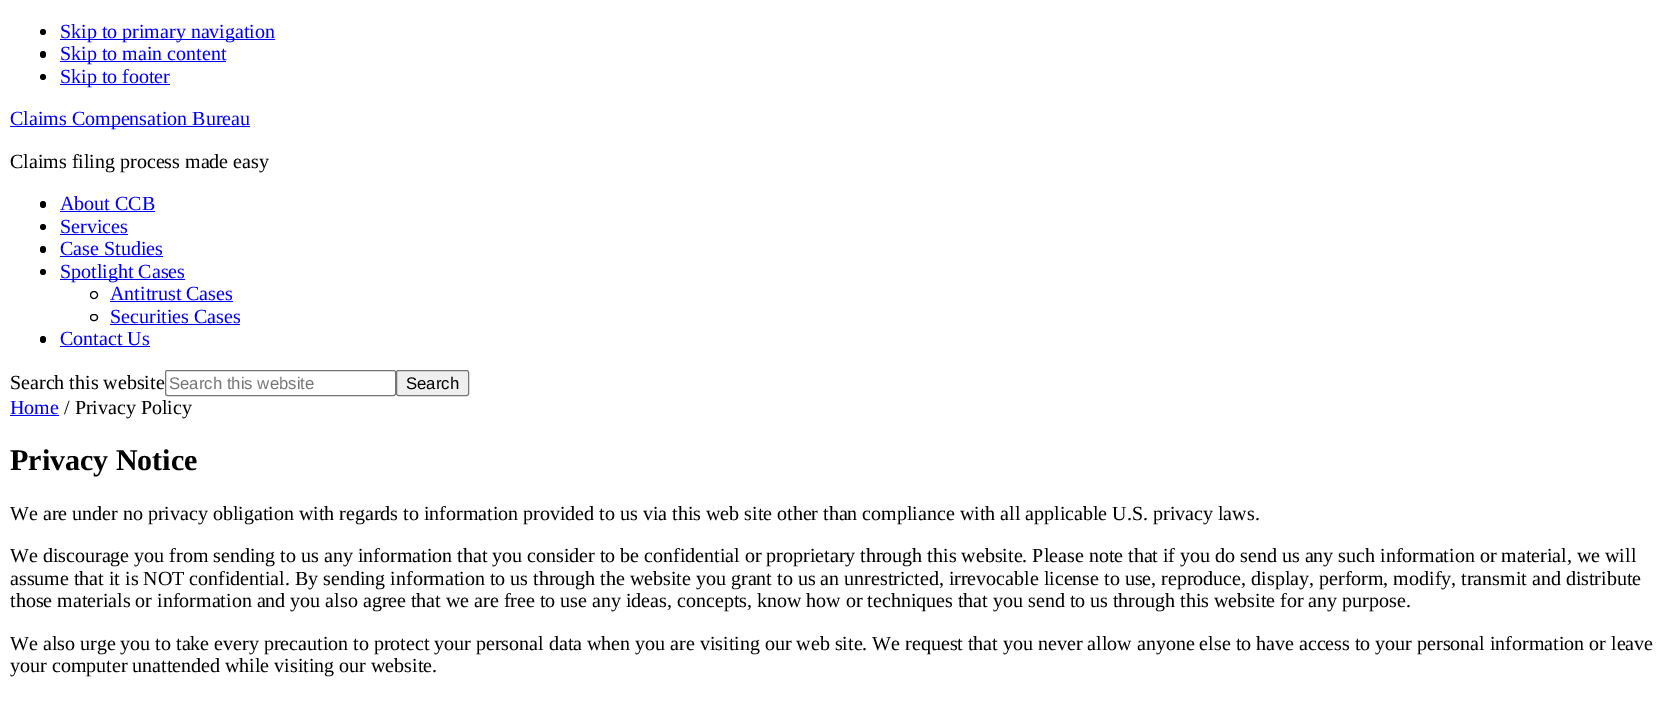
%!PS-Adobe-3.0
%%BoundingBox: 0 0 1676 702
%%LanguageLevel: 3
%%Pages: 1
%%EndComments
%%BeginProlog
/rrect { 5 dict begin { /r /h /w /y /x } { exch def } forall
  x r add y moveto x w add y 2 copy h add r arct x w add y h add x 1 index r arct
  x y h add x y r arct x y 2 copy exch w add exch r arct closepath end } def
%%EndProlog
%%BeginSetup
<< /PageSize [1676 702] >> setpagedevice
%%EndSetup
%%Page: 1 1
0 702 translate 1 -1 scale
4 setmiterlimit
1 setgray
0 0 1676 702 rectfill
0 setgray
newpath 43 32 3 0 360 arc closepath fill
0 0 0.933 setrgbcolor
60 39 215 1 rectfill
0 setgray
40 51 6 7 3 rrect fill
0 0 0.933 setrgbcolor
60 61 166 1 rectfill
0 setgray
newpath 43 77 3 0 360 arc closepath fill
0 0 0.933 setrgbcolor
60 84 110 1 rectfill
10 126 240 1 rectfill
0 setgray
40 201 6 7 3 rrect fill
0 0 0.933 setrgbcolor
60 211 95 1 rectfill
0 setgray
newpath 43 227 3 0 360 arc closepath fill
0 0 0.933 setrgbcolor
60 234 68 1 rectfill
0 setgray
40 246 6 7 3 rrect fill
0 0 0.933 setrgbcolor
60 256 103 1 rectfill
0 setgray
newpath 43 272 3 0 360 arc closepath fill
0 0 0.933 setrgbcolor
60 279 125 1 rectfill
0 setgray
newpath 94 295 3.5 0 360 arc closepath stroke
0 0 0.933 setrgbcolor
110 301 123 1 rectfill
0 setgray
90.5 314.5 7 6 3 rrect stroke
0 0 0.933 setrgbcolor
110 324 130 1 rectfill
0 setgray
40 336 6 7 3 rrect fill
0 0 0.933 setrgbcolor
60 346 90 1 rectfill
0.463 setgray
165.5 370.5 230 25 2 rrect stroke
0.937 setgray
396.5 370.5 72 25 2 rrect gsave fill grestore
0.463 setgray
stroke
0 0 0.933 setrgbcolor
10 415 49 1 rectfill
/LiberationSerif-Regular [20 0 0 -20 0 0] selectfont
60 38 moveto (Skip to primary navigation) show
60 60 moveto (Skip to main content) show
60 83 moveto (Skip to footer) show
10 125 moveto (Claims Compensation Bureau) show
0 setgray
10 168 moveto (Claims filing process made easy) show
0 0 0.933 setrgbcolor
60 210 moveto (About CCB) show
60 233 moveto (Services) show
60 255 moveto (Case Studies) show
60 278 moveto (Spotlight Cases) show
110 300 moveto (Antitrust Cases) show
110 323 moveto (Securities Cases) show
60 345 moveto (Contact Us) show
0 setgray
10 389 moveto (Search this website) show
/LiberationSans-Regular [16.75 0 0 -16.75 0 0] selectfont
0.459 setgray
169 389 moveto (Search this website) show
0 setgray
406 389 moveto (Search) show
/LiberationSerif-Regular [20 0 0 -20 0 0] selectfont
0 0 0.933 setrgbcolor
10 414 moveto (Home) show
0 setgray
64 414 moveto (/ Privacy Policy) show
/LiberationSerif-Bold [30 0 0 -30 0 0] selectfont
10 470 moveto (Privacy Notice) show
/LiberationSerif-Regular [20 0 0 -20 0 0] selectfont
10 520 moveto (We are under no privacy obligation with regards to information provided to us via this web site other than compliance with all applicable U.S. privacy laws.) show
10 562 moveto (We discourage you from sending to us any information that you consider to be confidential or proprietary through this website. Please note that if you do send us any such information or material, we will) show
10 585 moveto (assume that it is NOT confidential. By sending information to us through the website you grant to us an unrestricted, irrevocable license to use, reproduce, display, perform, modify, transmit and distribute) show
10 607 moveto (those materials or information and you also agree that we are free to use any ideas, concepts, know how or techniques that you send to us through this website for any purpose.) show
10 650 moveto (We also urge you to take every precaution to protect your personal data when you are visiting our web site. We request that you never allow anyone else to have access to your personal information or leave) show
10 672 moveto (your computer unattended while visiting our website.) show
showpage
%%EOF
